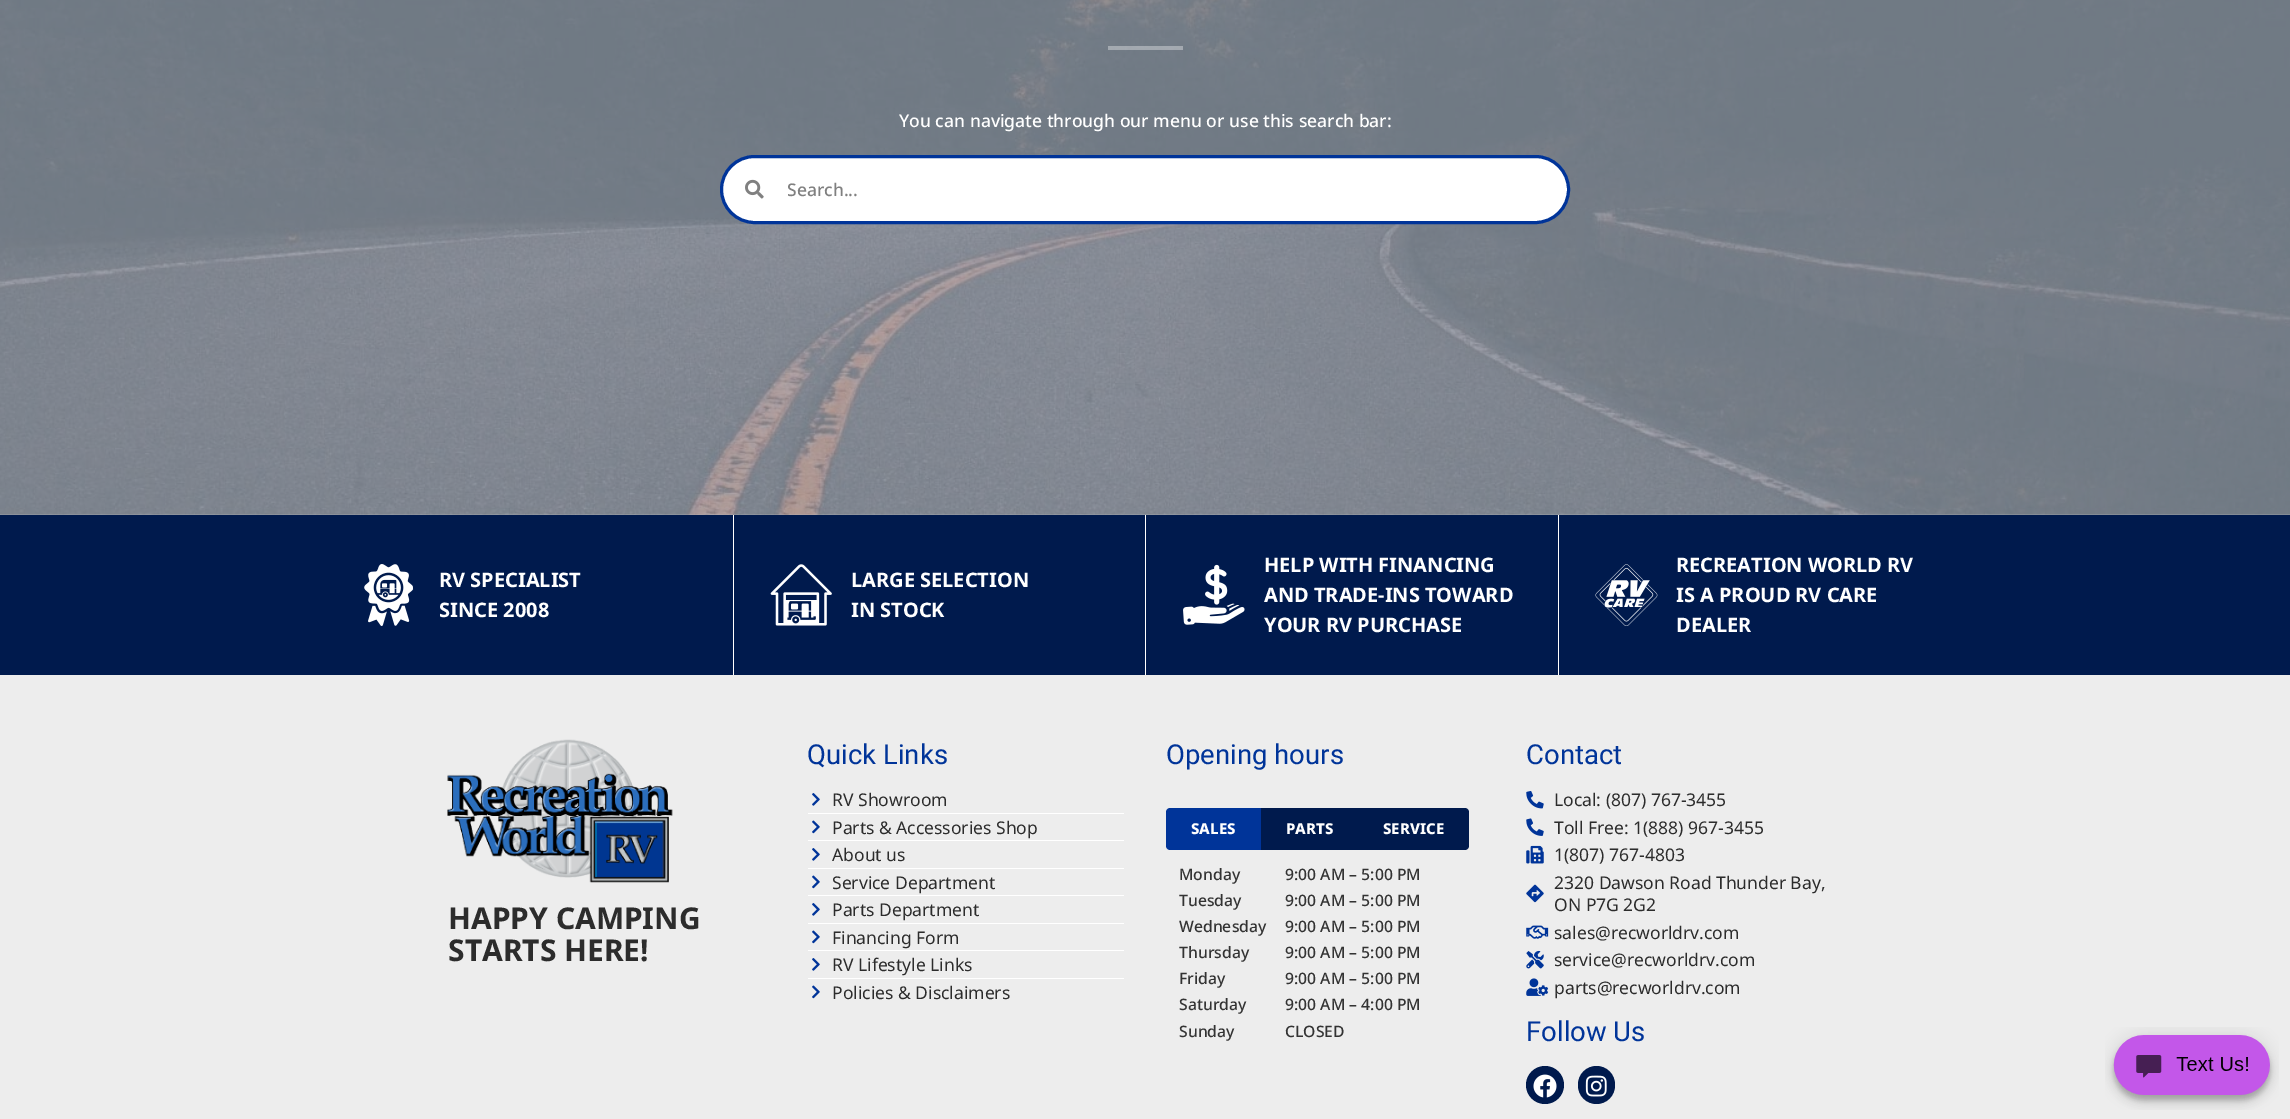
%!PS-Adobe-3.0
%%BoundingBox: 0 0 2290 1119
%%LanguageLevel: 3
%%Pages: 1
%%EndComments
%%BeginProlog
/setalpha { dup .setfillconstantalpha .setstrokeconstantalpha } def
/rrect { 5 dict begin { /r /h /w /y /x } { exch def } forall
  x r add y moveto x w add y 2 copy h add r arct x w add y h add x 1 index r arct
  x y h add x y r arct x y 2 copy exch w add exch r arct closepath end } def
/drawimage { 5 dict begin { /h /w /y /x /name } { exch def } forall
  gsave x y translate w h scale
  w h 8 [w 0 0 h 0 0] name (r) file false 3 colorimage grestore end } def
%%EndProlog
%%BeginSetup
<< /PageSize [2290 1119] /PageUsesTransparency true >> setpagedevice
%%EndSetup
%%Page: 1 1
0 .pushpdf14devicefilter
0 1119 translate 1 -1 scale
4 setmiterlimit
1 setgray
0 0 2290 1119 rectfill
(images/1.raw) 0 0 2290 515 drawimage
0.35 setalpha
1108 46 75 4 rectfill
1 setalpha
721.5 156.5 847 66 33 rrect gsave fill grestore
0 0.204 0.6 setrgbcolor
3 setlinewidth
stroke
(images/2.raw) 745 179 19 20 drawimage
0 0.102 0.302 setrgbcolor
0 515 2290 160 rectfill
(images/3.raw) 364 564 50 62 drawimage
1 setgray
733 515 1 160 rectfill
(images/4.raw) 770 564 62 62 drawimage
1145 515 1 160 rectfill
(images/5.raw) 1183 564 62 61 drawimage
1558 515 1 160 rectfill
(images/6.raw) 1595 564 63 62 drawimage
0.929 setgray
0 675 2290 444 rectfill
(images/7.raw) 447 739 226 144 drawimage
(images/8.raw) 812 793 8 13 drawimage
1 setgray
808 813 316 1 rectfill
(images/9.raw) 812 820 8 14 drawimage
808 840 316 1 rectfill
(images/8.raw) 812 848 8 13 drawimage
808 868 316 1 rectfill
(images/9.raw) 812 875 8 14 drawimage
808 895 316 1 rectfill
(images/8.raw) 812 903 8 13 drawimage
808 923 316 1 rectfill
(images/9.raw) 812 930 8 14 drawimage
808 950 316 1 rectfill
(images/8.raw) 812 958 8 13 drawimage
808 978 316 1 rectfill
(images/9.raw) 812 985 8 14 drawimage
0 0.204 0.6 setrgbcolor
newpath 1170 808 moveto 1261 808 lineto 1261 850 lineto 1170 850 lineto 1168 850 1166 848 1166 846 curveto 1166 812 lineto 1166 810 1168 808 1170 808 curveto closepath fill
0 0.102 0.302 setrgbcolor
1261 808 97 42 rectfill
newpath 1358 808 moveto 1465 808 lineto 1467 808 1469 810 1469 812 curveto 1469 846 lineto 1469 848 1467 850 1465 850 curveto 1358 850 lineto closepath fill
(images/10.raw) 1526 791 18 18 drawimage
(images/11.raw) 1526 818 18 18 drawimage
(images/12.raw) 1526 845 18 19 drawimage
(images/13.raw) 1526 884 18 19 drawimage
(images/14.raw) 1526 925 23 14 drawimage
(images/15.raw) 1526 950 18 19 drawimage
(images/16.raw) 1526 978 23 18 drawimage
newpath 1545 1085 19 0 360 arc closepath fill
(images/17.raw) 1533 1074 24 24 drawimage
1578 1066 37 38 18.5 rrect fill
(images/18.raw) 1585 1075 22 22 drawimage
(images/19.raw) 2105 1027 174 83 drawimage
/NotoSans-Medium [17.5 0 0 -17.5 0 0] selectfont
1 setgray
899 127 moveto (You can navigate through our menu or use this search bar:) show
0.502 setgray
787 196 moveto (Search...) show
/NotoSans-Bold [20 0 0 -20 0 0] selectfont
1 setgray
439 587 moveto (RV SPECIALIST) show
439 617 moveto (SINCE 2008) show
851 587 moveto (LARGE SELECTION) show
851 617 moveto (IN STOCK) show
1264 572 moveto (HELP WITH FINANCING) show
1264 602 moveto (AND TRADE-INS TOWARD) show
1264 632 moveto (YOUR RV PURCHASE) show
1676 572 moveto (RECREATION WORLD RV) show
1676 602 moveto (IS A PROUD RV CARE) show
1676 632 moveto (DEALER) show
/NotoSans-Bold [30 0 0 -30 0 0] selectfont
0.173 setgray
448 929 moveto (HAPPY CAMPING) show
448 961 moveto (STARTS HERE!) show
/Roboto-Regular [27.5 0 0 -27.5 0 0] selectfont
0 0.204 0.6 setrgbcolor
807 764 moveto (Quick Links) show
/NotoSans-Regular [17.5 0 0 -17.5 0 0] selectfont
0.173 setgray
832 806 moveto (RV Showroom) show
832 834 moveto (Parts & Accessories Shop) show
832 861 moveto (About us) show
832 889 moveto (Service Department) show
832 916 moveto (Parts Department) show
832 944 moveto (Financing Form) show
832 971 moveto (RV Lifestyle Links) show
832 999 moveto (Policies & Disclaimers) show
/Roboto-Regular [27.5 0 0 -27.5 0 0] selectfont
0 0.204 0.6 setrgbcolor
1166 764 moveto (Opening hours) show
/NotoSans-ExtraBold [15 0 0 -15 0 0] selectfont
1 setgray
1191 834 moveto (SALES) show
1286 834 moveto (PARTS) show
1383 834 moveto (SERVICE) show
/NotoSans-Medium [15.75 0 0 -15.75 0 0] selectfont
0.2 setgray
1179 880 moveto (Monday) show
1285 880 moveto (9:00 AM – 5:00 PM) show
1179 906 moveto (Tuesday) show
1285 906 moveto (9:00 AM – 5:00 PM) show
1179 932 moveto (Wednesday) show
1285 932 moveto (9:00 AM – 5:00 PM) show
1179 958 moveto (Thursday) show
1285 958 moveto (9:00 AM – 5:00 PM) show
1179 984 moveto (Friday) show
1285 984 moveto (9:00 AM – 5:00 PM) show
1179 1010 moveto (Saturday) show
1285 1010 moveto (9:00 AM – 4:00 PM) show
1179 1037 moveto (Sunday) show
1285 1037 moveto (CLOSED) show
/Roboto-Regular [27.5 0 0 -27.5 0 0] selectfont
0 0.204 0.6 setrgbcolor
1526 764 moveto (Contact) show
/NotoSans-Regular [17.5 0 0 -17.5 0 0] selectfont
0.173 setgray
1554 806 moveto (Local: \(807\) 767-3455) show
1554 834 moveto (Toll Free: 1\(888\) 967-3455) show
1554 861 moveto (1\(807\) 767-4803) show
1554 889 moveto (2320 Dawson Road Thunder Bay,) show
1554 911 moveto (ON P7G 2G2) show
1554 939 moveto (sales@recworldrv.com) show
1554 966 moveto (service@recworldrv.com) show
1554 994 moveto (parts@recworldrv.com) show
/Roboto-Regular [27.5 0 0 -27.5 0 0] selectfont
0 0.204 0.6 setrgbcolor
1526 1041 moveto (Follow Us) show
.poppdf14devicefilter showpage
%%EOF
